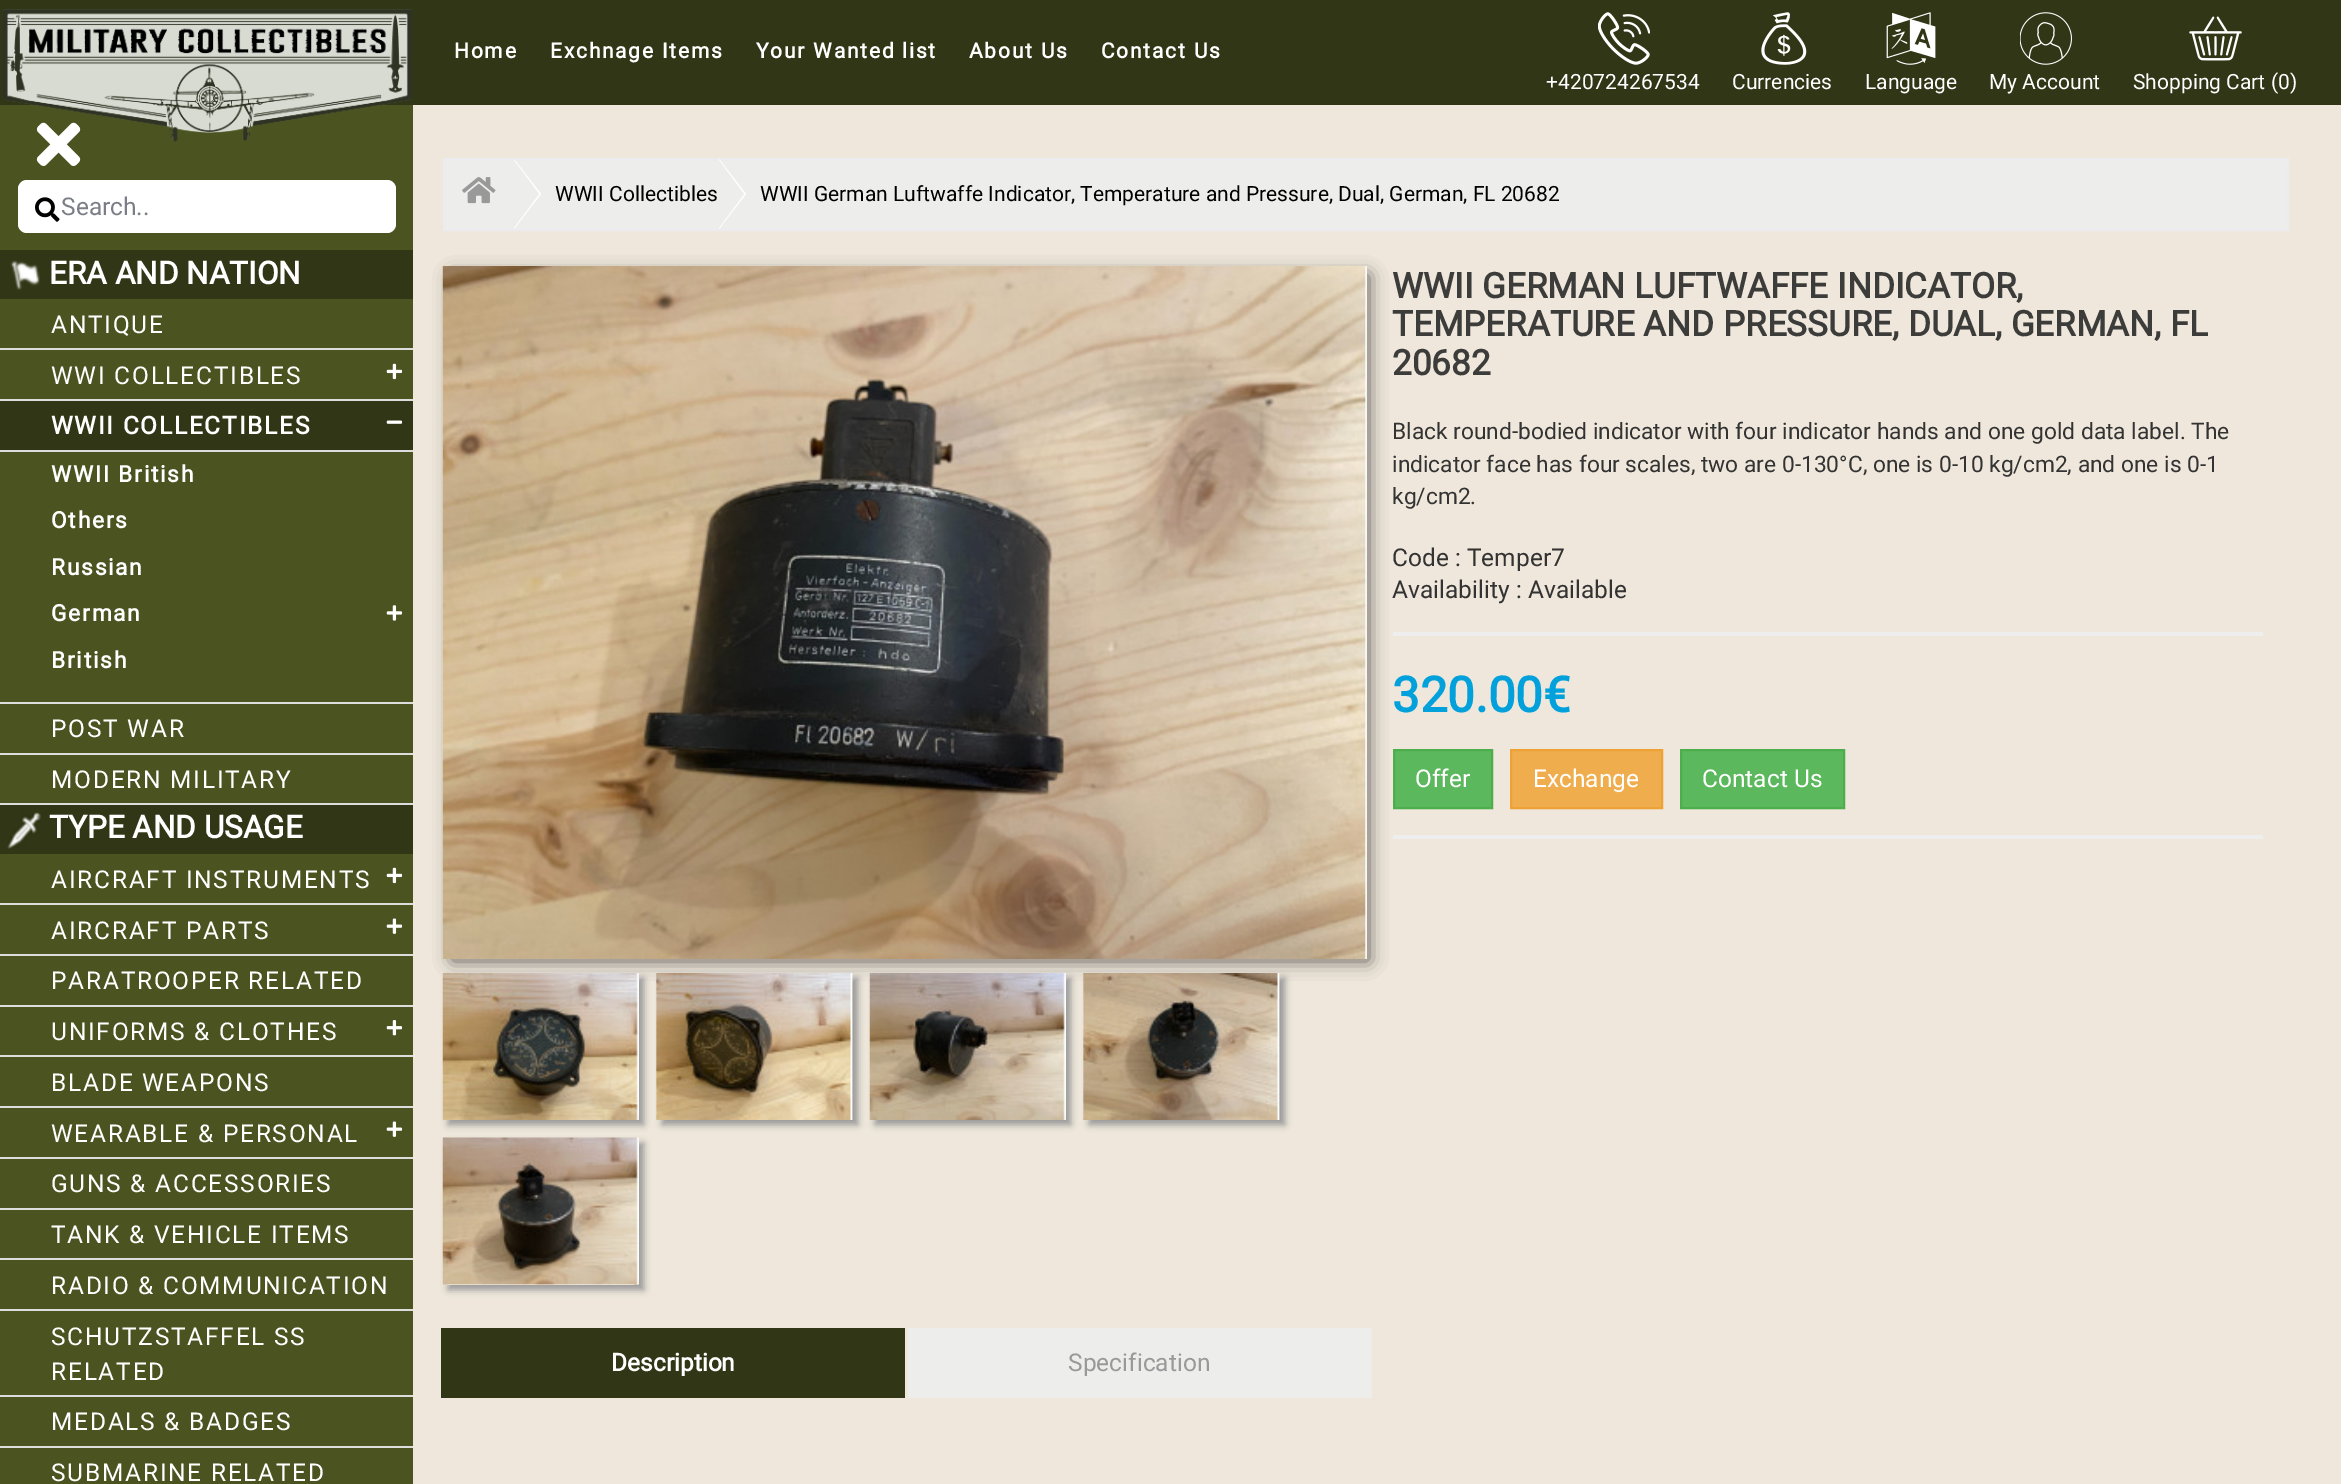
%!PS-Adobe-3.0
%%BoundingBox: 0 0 2341 1484
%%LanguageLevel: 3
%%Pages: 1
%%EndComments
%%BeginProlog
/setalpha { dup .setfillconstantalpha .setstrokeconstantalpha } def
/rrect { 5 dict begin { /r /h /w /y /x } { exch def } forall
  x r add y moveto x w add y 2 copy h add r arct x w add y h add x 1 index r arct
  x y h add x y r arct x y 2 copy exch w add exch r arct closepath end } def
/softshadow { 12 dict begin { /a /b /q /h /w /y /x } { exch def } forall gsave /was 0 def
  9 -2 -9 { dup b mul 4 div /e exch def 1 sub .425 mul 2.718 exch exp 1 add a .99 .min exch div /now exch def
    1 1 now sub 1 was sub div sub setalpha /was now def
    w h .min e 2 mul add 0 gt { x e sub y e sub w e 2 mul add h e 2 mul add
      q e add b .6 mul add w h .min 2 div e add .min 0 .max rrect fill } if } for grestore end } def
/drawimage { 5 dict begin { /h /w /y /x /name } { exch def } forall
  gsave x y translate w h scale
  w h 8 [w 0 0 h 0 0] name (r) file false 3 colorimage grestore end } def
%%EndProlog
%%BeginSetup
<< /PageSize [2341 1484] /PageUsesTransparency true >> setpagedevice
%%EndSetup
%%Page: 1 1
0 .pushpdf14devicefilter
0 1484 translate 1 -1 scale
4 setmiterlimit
0.937 0.906 0.859 setrgbcolor
0 0 2341 1484 rectfill
0.192 0.212 0.086 setrgbcolor
0 0 2341 105 rectfill
0.294 0.325 0.125 setrgbcolor
0 105 413 1379 rectfill
(images/7.raw) 36 122 45 44 drawimage
(images/1.raw) 3 9 409 133 drawimage
(images/2.raw) 1598 12 52 53 drawimage
(images/3.raw) 1761 12 46 53 drawimage
(images/4.raw) 1886 12 50 53 drawimage
(images/5.raw) 2020 12 52 53 drawimage
(images/6.raw) 2189 16 53 45 drawimage
1 setgray
18 180 378 53 9 rrect fill
(images/8.raw) 35 197 25 25 drawimage
0.192 0.212 0.086 setrgbcolor
0 250 413 49 rectfill
(images/9.raw) 10 260 30 30 drawimage
0.867 setgray
0 348 413 2 rectfill
0 399 413 2 rectfill
(images/10.raw) 386 363 17 17 drawimage
0.192 0.212 0.086 setrgbcolor
0 401 413 49 rectfill
0.867 setgray
0 450 413 2 rectfill
(images/11.raw) 386 420 17 4 drawimage
0 702 413 2 rectfill
(images/12.raw) 386 605 17 16 drawimage
0 753 413 2 rectfill
0 803 413 2 rectfill
0.192 0.212 0.086 setrgbcolor
0 805 413 49 rectfill
(images/13.raw) 7 812 34 37 drawimage
0.867 setgray
0 903 413 2 rectfill
(images/10.raw) 386 867 17 17 drawimage
0 954 413 2 rectfill
(images/14.raw) 386 918 17 16 drawimage
0 1005 413 2 rectfill
0 1055 413 2 rectfill
(images/15.raw) 386 1020 17 16 drawimage
0 1106 413 2 rectfill
0 1157 413 2 rectfill
(images/14.raw) 386 1121 17 16 drawimage
0 1208 413 2 rectfill
0 1258 413 2 rectfill
0 1309 413 2 rectfill
0 1395 413 2 rectfill
0 1446 413 2 rectfill
0.929 0.929 0.925 setrgbcolor
newpath 444 159 moveto 2288 159 lineto 2288 230 lineto 444 230 lineto closepath gsave fill grestore
0.922 0.922 0.941 setrgbcolor
2 setlinewidth
stroke
(images/16.raw) 462 177 34 27 drawimage
1 setgray
newpath 514 229 moveto 514 159 lineto 541 194 lineto closepath fill
0.929 0.929 0.925 setrgbcolor
newpath 513 229 moveto 513 159 lineto 539 194 lineto closepath fill
1 setgray
newpath 719 229 moveto 719 159 lineto 746 194 lineto closepath fill
0.929 0.929 0.925 setrgbcolor
newpath 718 229 moveto 718 159 lineto 744 194 lineto closepath fill
0 setgray
452 275 917 686 0 9 0.6 softshadow
(images/17.raw) 442 266 925 693 drawimage
0.6 setgray
448 978 196 147 0 3.5 1 softshadow
(images/18.raw) 442 973 197 147 drawimage
662 978 196 147 0 3.5 1 softshadow
(images/19.raw) 656 973 197 147 drawimage
875 978 196 147 0 3.5 1 softshadow
(images/20.raw) 869 973 197 147 drawimage
1089 978 196 147 0 3.5 1 softshadow
(images/21.raw) 1083 973 197 147 drawimage
448 1143 196 147 0 3.5 1 softshadow
1 setgray
443 1138 196 147 7 rrect fill
(images/22.raw) 442 1137 197 148 drawimage
0.933 setgray
1393 632 870 4 rectfill
0.361 0.722 0.361 setrgbcolor
newpath 1394 750 moveto 1492 750 lineto 1492 808 lineto 1394 808 lineto closepath gsave fill grestore
0.298 0.682 0.298 setrgbcolor
stroke
0.941 0.678 0.306 setrgbcolor
newpath 1511 750 moveto 1662 750 lineto 1662 808 lineto 1511 808 lineto closepath gsave fill grestore
0.933 0.635 0.212 setrgbcolor
stroke
0.361 0.722 0.361 setrgbcolor
newpath 1681 750 moveto 1844 750 lineto 1844 808 lineto 1681 808 lineto closepath gsave fill grestore
0.298 0.682 0.298 setrgbcolor
stroke
0.933 setgray
1393 835 870 4 rectfill
0.192 0.212 0.086 setrgbcolor
441 1328 464 70 rectfill
0.929 0.929 0.925 setrgbcolor
908 1328 464 70 rectfill
/Roboto-Bold [21 0 0 -21 0 0] selectfont
1 setgray
454 58 moveto 1.75 0 (Home) ashow
550 58 moveto 1.75 0 (Exchnage Items) ashow
756 58 moveto 1.75 0 (Your Wanted list) ashow
969 58 moveto 1.75 0 (About Us) ashow
1101 58 moveto 1.75 0 (Contact Us) ashow
/Roboto-Regular [21 0 0 -21 0 0] selectfont
1546 89 moveto (+420724267534) show
1732 89 moveto (Currencies) show
1865 89 moveto (Language) show
1989 89 moveto (My Account) show
2133 89 moveto (Shopping Cart \(0\)) show
/Roboto-Regular [24.5 0 0 -24.5 0 0] selectfont
0.482 0.494 0.525 setrgbcolor
61 215 moveto (Search..) show
/Roboto-Bold [31.5 0 0 -31.5 0 0] selectfont
1 setgray
49 284 moveto (ERA AND NATION) show
/Roboto-Regular [24.5 0 0 -24.5 0 0] selectfont
51 333 moveto 1.75 0 (ANTIQUE) ashow
51 384 moveto 1.75 0 (WWI COLLECTIBLES) ashow
/Roboto-Bold [24.5 0 0 -24.5 0 0] selectfont
51 434 moveto 1.75 0 (WWII COLLECTIBLES) ashow
/Roboto-Bold [22.75 0 0 -22.75 0 0] selectfont
51 482 moveto 1.75 0 (WWII British) ashow
51 528 moveto 1.75 0 (Others) ashow
51 575 moveto 1.75 0 (Russian) ashow
51 621 moveto 1.75 0 (German) ashow
51 668 moveto 1.75 0 (British) ashow
/Roboto-Regular [24.5 0 0 -24.5 0 0] selectfont
51 737 moveto 1.75 0 (POST WAR) ashow
51 788 moveto 1.75 0 (MODERN MILITARY) ashow
/Roboto-Bold [31.5 0 0 -31.5 0 0] selectfont
49 838 moveto (TYPE AND USAGE) show
/Roboto-Regular [24.5 0 0 -24.5 0 0] selectfont
51 888 moveto 1.75 0 (AIRCRAFT INSTRUMENTS) ashow
51 939 moveto 1.75 0 (AIRCRAFT PARTS) ashow
51 989 moveto 1.75 0 (PARATROOPER RELATED) ashow
51 1040 moveto 1.75 0 (UNIFORMS & CLOTHES) ashow
51 1091 moveto 1.75 0 (BLADE WEAPONS) ashow
51 1142 moveto 1.75 0 (WEARABLE & PERSONAL) ashow
51 1192 moveto 1.75 0 (GUNS & ACCESSORIES) ashow
51 1243 moveto 1.75 0 (TANK & VEHICLE ITEMS) ashow
51 1294 moveto 1.75 0 (RADIO & COMMUNICATION) ashow
51 1345 moveto 1.75 0 (SCHUTZSTAFFEL SS) ashow
51 1380 moveto 1.75 0 (RELATED) ashow
51 1430 moveto 1.75 0 (MEDALS & BADGES) ashow
51 1481 moveto 1.75 0 (SUBMARINE RELATED) ashow
/Roboto-Regular [21 0 0 -21 0 0] selectfont
0 setgray
555 201 moveto (WWII Collectibles) show
760 201 moveto (WWII German Luftwaffe Indicator, Temperature and Pressure, Dual, German, FL 20682) show
/Roboto-Bold [35 0 0 -35 0 0] selectfont
0.235 0.235 0.231 setrgbcolor
1392 298 moveto (WWII GERMAN LUFTWAFFE INDICATOR,) show
1392 336 moveto (TEMPERATURE AND PRESSURE, DUAL, GERMAN, FL) show
1392 375 moveto (20682) show
/Roboto-Regular [22.75 0 0 -22.75 0 0] selectfont
0.2 setgray
1392 439 moveto (Black round-bodied indicator with four indicator hands and one gold data label. The) show
1392 472 moveto (indicator face has four scales, two are 0-130°C, one is 0-10 kg/cm2, and one is 0-1) show
1392 504 moveto (kg/cm2.) show
/Roboto-Regular [24.5 0 0 -24.5 0 0] selectfont
1392 566 moveto (Code : Temper7) show
1392 598 moveto (Availability : Available) show
/Roboto-Bold [49 0 0 -49 0 0] selectfont
0.012 0.631 0.859 setrgbcolor
1392 712 moveto (320.00€) show
/Roboto-Regular [24.5 0 0 -24.5 0 0] selectfont
1 setgray
1415 787 moveto (Offer) show
1533 787 moveto (Exchange) show
1702 787 moveto (Contact Us) show
/Roboto-Bold [24.5 0 0 -24.5 0 0] selectfont
611 1371 moveto (Description) show
/Roboto-Regular [24.5 0 0 -24.5 0 0] selectfont
0.6 setgray
1068 1371 moveto (Specification) show
.poppdf14devicefilter showpage
%%EOF
